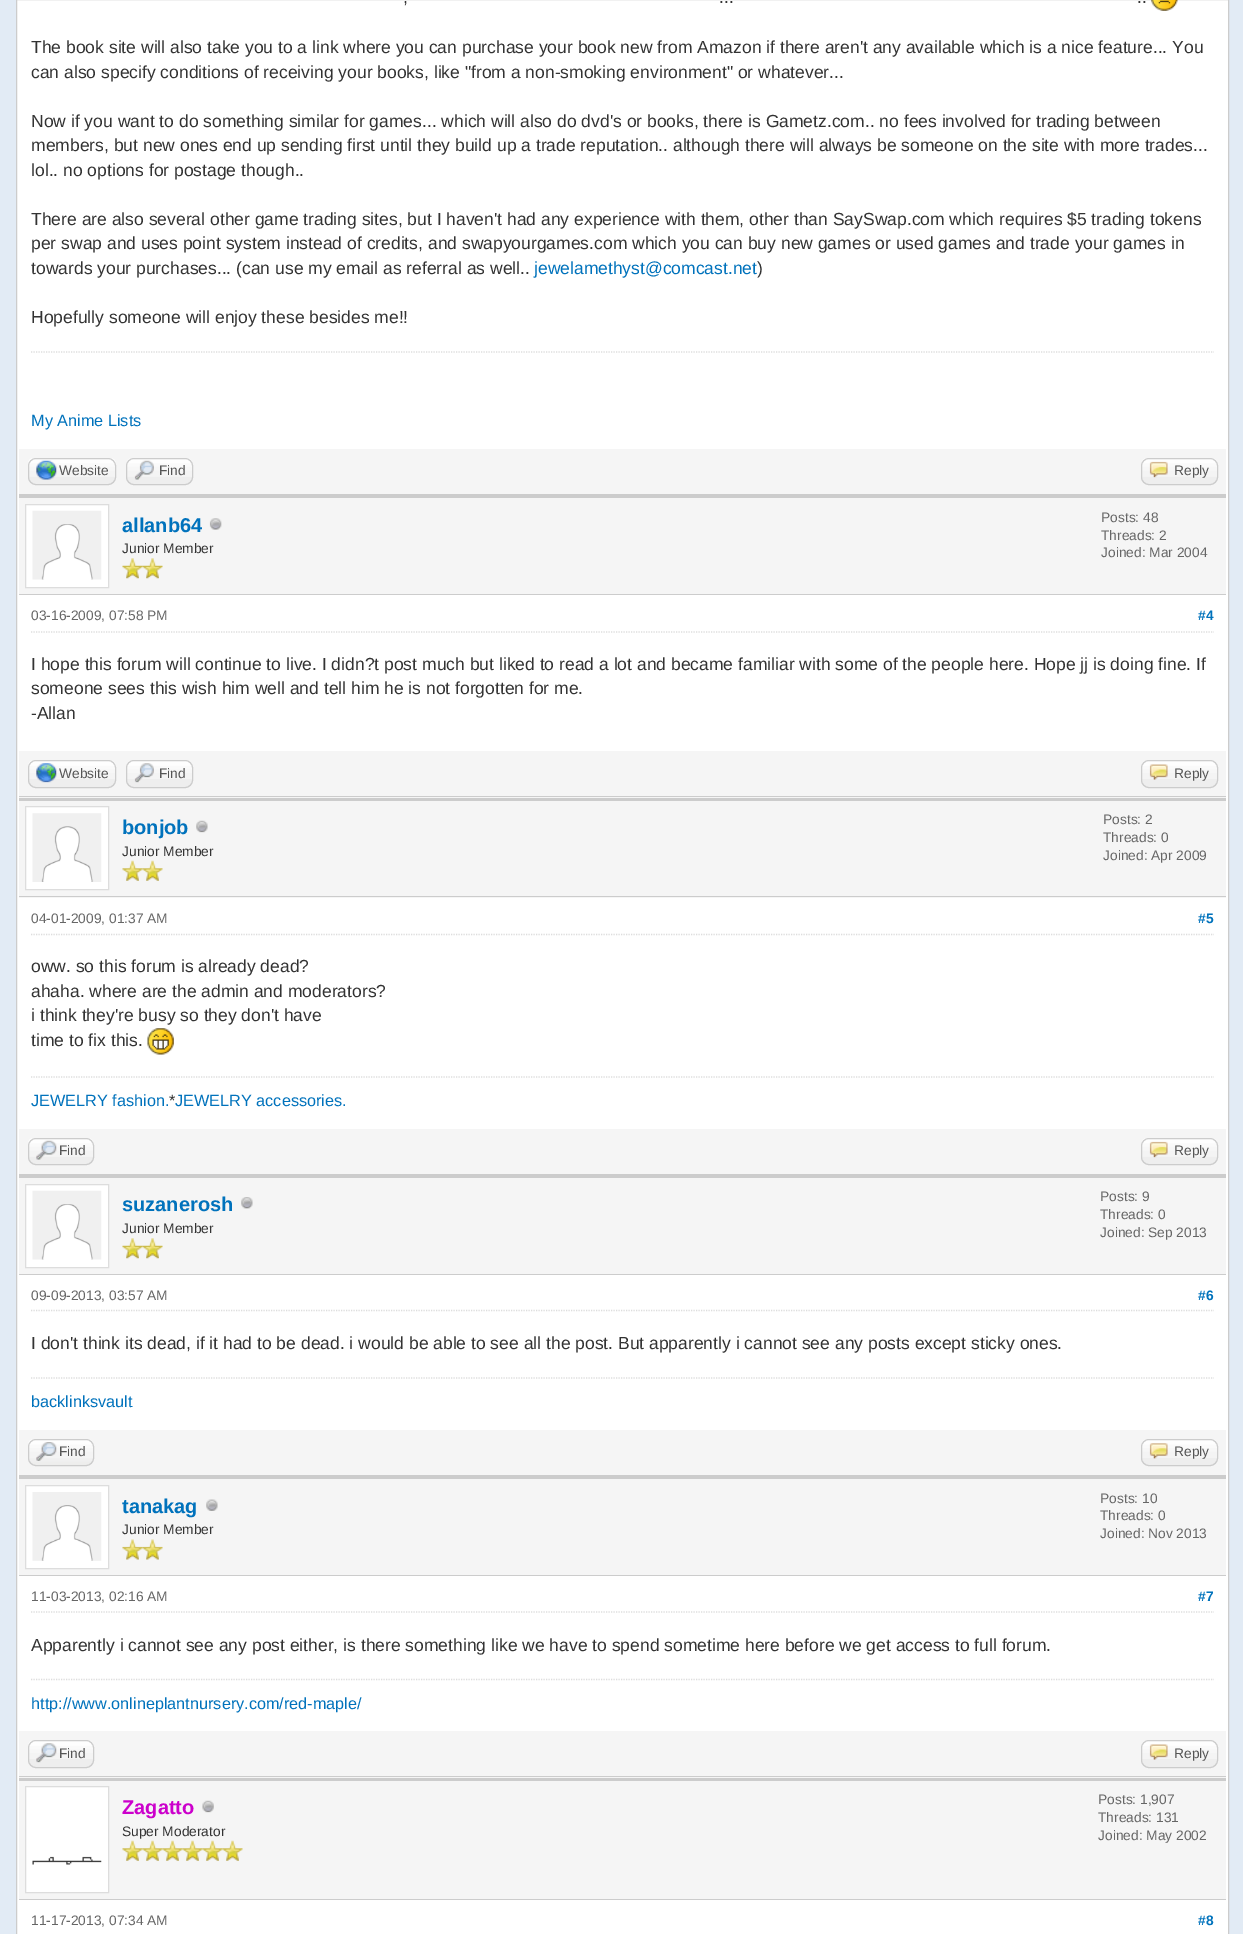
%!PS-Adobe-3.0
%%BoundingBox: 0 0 1243 1934
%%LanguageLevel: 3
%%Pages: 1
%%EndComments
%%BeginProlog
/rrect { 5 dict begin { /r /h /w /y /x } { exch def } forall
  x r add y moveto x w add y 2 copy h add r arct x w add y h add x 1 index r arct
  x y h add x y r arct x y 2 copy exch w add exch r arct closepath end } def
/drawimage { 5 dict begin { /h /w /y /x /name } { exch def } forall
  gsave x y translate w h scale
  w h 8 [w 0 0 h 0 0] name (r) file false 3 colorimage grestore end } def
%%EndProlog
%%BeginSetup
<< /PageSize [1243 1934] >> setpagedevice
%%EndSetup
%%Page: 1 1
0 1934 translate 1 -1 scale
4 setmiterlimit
0.886 0.922 0.961 setrgbcolor
0 0 1243 1934 rectfill
1 setgray
newpath 16.5 -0.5 moveto 1228.5 -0.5 lineto 1228.5 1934.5 lineto 16.5 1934.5 lineto closepath gsave fill grestore
0.8 setgray
stroke
(images/1.raw) 1151 0 27 11 drawimage
0.867 setgray
1.2 setlinewidth
[1.25 1.25] 0 setdash
newpath 31 352 moveto 1214 352 lineto stroke
0.961 setgray
19 449 1207 45 rectfill
0.8 setgray
19 494 1207 4 rectfill
0.933 setgray
28 458 88 27 8 rrect fill
(images/2.raw) 28 458 88 19 drawimage
0.8 setgray
1 setlinewidth
[] 0 setdash
28.5 458.5 87 26 7.5 rrect stroke
(images/3.raw) 36 460 21 20 drawimage
0.933 setgray
126 458 67 27 8 rrect fill
(images/4.raw) 126 458 66 19 drawimage
0.8 setgray
126.5 458.5 66 26 7.5 rrect stroke
(images/5.raw) 134 460 20 20 drawimage
0.933 setgray
1141 458 77 27 8 rrect fill
(images/6.raw) 1141 458 76 19 drawimage
0.8 setgray
1141.5 458.5 76 26 7.5 rrect stroke
(images/7.raw) 1149 461 19 17 drawimage
0.961 setgray
19 498 1207 96 rectfill
0.8 setgray
19 594 1207 1 rectfill
1 setgray
newpath 25.5 504.5 moveto 108.5 504.5 lineto 108.5 587.5 lineto 25.5 587.5 lineto closepath gsave fill grestore
0.867 setgray
stroke
(images/8.raw) 32 510 70 70 drawimage
(images/9.raw) 209 518 13 12 drawimage
(images/10.raw) 122 558 21 21 drawimage
(images/11.raw) 142 558 21 21 drawimage
1.2 setlinewidth
[1.25 1.25] 0 setdash
newpath 31 632 moveto 1214 632 lineto stroke
0.961 setgray
19 751 1207 47 rectfill
0.8 setgray
19 796 1207 1 rectfill
0.933 setgray
28 760 88 28 8 rrect fill
(images/12.raw) 28 760 88 19 drawimage
0.8 setgray
1 setlinewidth
[] 0 setdash
28.5 760.5 87 27 7.5 rrect stroke
(images/13.raw) 36 763 21 20 drawimage
0.933 setgray
126 760 67 28 8 rrect fill
(images/14.raw) 126 760 66 19 drawimage
0.8 setgray
126.5 760.5 66 27 7.5 rrect stroke
(images/15.raw) 134 763 20 20 drawimage
0.933 setgray
1141 760 77 28 8 rrect fill
(images/16.raw) 1141 760 76 19 drawimage
0.8 setgray
1141.5 760.5 76 27 7.5 rrect stroke
(images/17.raw) 1149 764 19 16 drawimage
0.961 setgray
19 801 1207 97 rectfill
0.8 setgray
19 798 1207 3 rectfill
19 896 1207 1 rectfill
1 setgray
newpath 25.5 806.5 moveto 108.5 806.5 lineto 108.5 889.5 lineto 25.5 889.5 lineto closepath gsave fill grestore
0.867 setgray
stroke
(images/18.raw) 32 813 70 69 drawimage
(images/19.raw) 196 820 12 13 drawimage
(images/20.raw) 122 860 21 21 drawimage
(images/21.raw) 142 860 21 21 drawimage
1.2 setlinewidth
[1.25 1.25] 0 setdash
newpath 31 934.5 moveto 1214 934.5 lineto stroke
(images/22.raw) 147 1028 27 27 drawimage
newpath 31 1077 moveto 1214 1077 lineto stroke
0.961 setgray
19 1129 1207 45 rectfill
0.8 setgray
19 1174 1207 4 rectfill
0.933 setgray
28 1138 66 27 8 rrect fill
(images/23.raw) 28 1138 66 19 drawimage
0.8 setgray
1 setlinewidth
[] 0 setdash
28.5 1138.5 65 26 7.5 rrect stroke
(images/24.raw) 36 1140 21 20 drawimage
0.933 setgray
1141 1138 77 27 8 rrect fill
(images/6.raw) 1141 1138 76 19 drawimage
0.8 setgray
1141.5 1138.5 76 26 7.5 rrect stroke
(images/7.raw) 1149 1141 19 17 drawimage
0.961 setgray
19 1178 1207 96 rectfill
0.8 setgray
19 1274 1207 1 rectfill
1 setgray
newpath 25.5 1184.5 moveto 108.5 1184.5 lineto 108.5 1267.5 lineto 25.5 1267.5 lineto closepath gsave fill grestore
0.867 setgray
stroke
(images/8.raw) 32 1190 70 70 drawimage
(images/25.raw) 241 1197 12 12 drawimage
(images/10.raw) 122 1238 21 21 drawimage
(images/11.raw) 142 1238 21 21 drawimage
1.2 setlinewidth
[1.25 1.25] 0 setdash
newpath 31 1310.5 moveto 1214 1310.5 lineto stroke
newpath 31 1378 moveto 1214 1378 lineto stroke
0.961 setgray
19 1430 1207 45 rectfill
0.8 setgray
19 1475 1207 4 rectfill
(images/26.raw) 28 1439 66 26 drawimage
1 setlinewidth
[] 0 setdash
28.5 1439.5 65 26 7.5 rrect stroke
(images/27.raw) 36 1442 21 19 drawimage
0.933 setgray
1141 1439 77 27 8 rrect fill
(images/28.raw) 1141 1439 76 19 drawimage
0.8 setgray
1141.5 1439.5 76 26 7.5 rrect stroke
(images/29.raw) 1149 1443 19 16 drawimage
0.961 setgray
19 1479 1207 96 rectfill
0.8 setgray
19 1575 1207 1 rectfill
1 setgray
newpath 25.5 1485.5 moveto 108.5 1485.5 lineto 108.5 1568.5 lineto 25.5 1568.5 lineto closepath gsave fill grestore
0.867 setgray
stroke
(images/30.raw) 32 1492 70 69 drawimage
(images/31.raw) 206 1499 12 12 drawimage
(images/32.raw) 122 1539 21 21 drawimage
(images/33.raw) 142 1539 21 21 drawimage
1.2 setlinewidth
[1.25 1.25] 0 setdash
newpath 31 1612 moveto 1214 1612 lineto stroke
newpath 31 1679.5 moveto 1214 1679.5 lineto stroke
0.961 setgray
19 1731 1207 47 rectfill
0.8 setgray
19 1776 1207 1 rectfill
0.933 setgray
28 1740 66 28 8 rrect fill
(images/34.raw) 28 1740 66 19 drawimage
0.8 setgray
1 setlinewidth
[] 0 setdash
28.5 1740.5 65 27 7.5 rrect stroke
(images/35.raw) 36 1743 21 20 drawimage
0.933 setgray
1141 1740 77 28 8 rrect fill
(images/16.raw) 1141 1740 76 19 drawimage
0.8 setgray
1141.5 1740.5 76 27 7.5 rrect stroke
(images/17.raw) 1149 1744 19 16 drawimage
0.961 setgray
19 1781 1207 118 rectfill
0.8 setgray
19 1778 1207 3 rectfill
19 1899 1207 1 rectfill
1 setgray
newpath 25.5 1786.5 moveto 108.5 1786.5 lineto 108.5 1892.5 lineto 25.5 1892.5 lineto closepath gsave fill grestore
0.867 setgray
stroke
(images/36.raw) 32 1856 70 9 drawimage
(images/37.raw) 202 1800 12 13 drawimage
(images/38.raw) 122 1840 21 21 drawimage
(images/39.raw) 142 1840 21 21 drawimage
(images/39.raw) 162 1840 21 21 drawimage
(images/39.raw) 182 1840 21 21 drawimage
(images/39.raw) 202 1840 21 21 drawimage
(images/39.raw) 222 1840 21 21 drawimage
/LiberationSans-Regular [17.5 0 0 -17.5 0 0] selectfont
0.2 setgray
403 3 moveto (,) show
719 3 moveto (...) show
1137 3 moveto (..) show
31 53 moveto (The book site will also take you to a link where you can purchase your book new from Amazon if there aren't any available which is a nice feature... You) show
31 78 moveto (can also specify conditions of receiving your books, like "from a non-smoking environment" or whatever...) show
31 127 moveto (Now if you want to do something similar for games... which will also do dvd's or books, there is Gametz.com.. no fees involved for trading between) show
31 151 moveto (members, but new ones end up sending first until they build up a trade reputation.. although there will always be someone on the site with more trades...) show
31 176 moveto (lol.. no options for postage though..) show
31 225 moveto (There are also several other game trading sites, but I haven't had any experience with them, other than SaySwap.com which requires $5 trading tokens) show
31 249 moveto (per swap and uses point system instead of credits, and swapyourgames.com which you can buy new games or used games and trade your games in) show
31 274 moveto (towards your purchases... \(can use my email as referral as well..) show
0 0.447 0.737 setrgbcolor
534 274 moveto (jewelamethyst@comcast.net) show
0.2 setgray
757 274 moveto (\)) show
31 323 moveto (Hopefully someone will enjoy these besides me!!) show
/LiberationSans-Regular [16.25 0 0 -16.25 0 0] selectfont
0 0.447 0.737 setrgbcolor
31 426 moveto (My Anime Lists) show
/LiberationSans-Regular [13.75 0 0 -13.75 0 0] selectfont
0.333 setgray
59 475 moveto (Website) show
159 475 moveto (Find) show
1174 475 moveto (Reply) show
/LiberationSans-Bold [20 0 0 -20 0 0] selectfont
0 0.447 0.737 setrgbcolor
122 532 moveto (allanb64) show
/LiberationSans-Regular [13.75 0 0 -13.75 0 0] selectfont
0.2 setgray
122 553 moveto (Junior Member) show
0.4 setgray
1101 522 moveto (Posts: 48) show
1101 540 moveto (Threads: 2) show
1101 557 moveto (Joined: Mar 2004) show
31 620 moveto (03-16-2009, 07:58 PM) show
/LiberationSans-Bold [13.75 0 0 -13.75 0 0] selectfont
0 0.447 0.737 setrgbcolor
1198 620 moveto (#4) show
/LiberationSans-Regular [17.5 0 0 -17.5 0 0] selectfont
0.2 setgray
31 670 moveto (I hope this forum will continue to live. I didn?t post much but liked to read a lot and became familiar with some of the people here. Hope jj is doing fine. If) show
31 694 moveto (someone sees this wish him well and tell him he is not forgotten for me.) show
31 719 moveto (-Allan) show
/LiberationSans-Regular [13.75 0 0 -13.75 0 0] selectfont
0.333 setgray
59 778 moveto (Website) show
159 778 moveto (Find) show
1174 778 moveto (Reply) show
/LiberationSans-Bold [20 0 0 -20 0 0] selectfont
0 0.447 0.737 setrgbcolor
122 834 moveto (bonjob) show
/LiberationSans-Regular [13.75 0 0 -13.75 0 0] selectfont
0.2 setgray
122 856 moveto (Junior Member) show
0.4 setgray
1103 824 moveto (Posts: 2) show
1103 842 moveto (Threads: 0) show
1103 860 moveto (Joined: Apr 2009) show
31 923 moveto (04-01-2009, 01:37 AM) show
/LiberationSans-Bold [13.75 0 0 -13.75 0 0] selectfont
0 0.447 0.737 setrgbcolor
1198 923 moveto (#5) show
/LiberationSans-Regular [17.5 0 0 -17.5 0 0] selectfont
0.2 setgray
31 972 moveto (oww. so this forum is already dead?) show
31 997 moveto (ahaha. where are the admin and moderators?) show
31 1021 moveto (i think they're busy so they don't have) show
31 1046 moveto (time to fix this.) show
/LiberationSans-Regular [16.25 0 0 -16.25 0 0] selectfont
0 0.447 0.737 setrgbcolor
31 1106 moveto (JEWELRY fashion.) show
0.2 setgray
169 1106 moveto (*) show
0 0.447 0.737 setrgbcolor
175 1106 moveto (JEWELRY accessories.) show
/LiberationSans-Regular [13.75 0 0 -13.75 0 0] selectfont
0.333 setgray
59 1155 moveto (Find) show
1174 1155 moveto (Reply) show
/LiberationSans-Bold [20 0 0 -20 0 0] selectfont
0 0.447 0.737 setrgbcolor
122 1211 moveto (suzanerosh) show
/LiberationSans-Regular [13.75 0 0 -13.75 0 0] selectfont
0.2 setgray
122 1233 moveto (Junior Member) show
0.4 setgray
1100 1201 moveto (Posts: 9) show
1100 1219 moveto (Threads: 0) show
1100 1237 moveto (Joined: Sep 2013) show
31 1300 moveto (09-09-2013, 03:57 AM) show
/LiberationSans-Bold [13.75 0 0 -13.75 0 0] selectfont
0 0.447 0.737 setrgbcolor
1198 1300 moveto (#6) show
/LiberationSans-Regular [17.5 0 0 -17.5 0 0] selectfont
0.2 setgray
31 1349 moveto (I don't think its dead, if it had to be dead. i would be able to see all the post. But apparently i cannot see any posts except sticky ones.) show
/LiberationSans-Regular [16.25 0 0 -16.25 0 0] selectfont
0 0.447 0.737 setrgbcolor
31 1407 moveto (backlinksvault) show
/LiberationSans-Regular [13.75 0 0 -13.75 0 0] selectfont
0.333 setgray
59 1456 moveto (Find) show
1174 1456 moveto (Reply) show
/LiberationSans-Bold [20 0 0 -20 0 0] selectfont
0 0.447 0.737 setrgbcolor
122 1513 moveto (tanakag) show
/LiberationSans-Regular [13.75 0 0 -13.75 0 0] selectfont
0.2 setgray
122 1534 moveto (Junior Member) show
0.4 setgray
1100 1503 moveto (Posts: 10) show
1100 1520 moveto (Threads: 0) show
1100 1538 moveto (Joined: Nov 2013) show
31 1601 moveto (11-03-2013, 02:16 AM) show
/LiberationSans-Bold [13.75 0 0 -13.75 0 0] selectfont
0 0.447 0.737 setrgbcolor
1198 1601 moveto (#7) show
/LiberationSans-Regular [17.5 0 0 -17.5 0 0] selectfont
0.2 setgray
31 1651 moveto (Apparently i cannot see any post either, is there something like we have to spend sometime here before we get access to full forum.) show
/LiberationSans-Regular [16.25 0 0 -16.25 0 0] selectfont
0 0.447 0.737 setrgbcolor
31 1709 moveto (http://www.onlineplantnursery.com/red-maple/) show
/LiberationSans-Regular [13.75 0 0 -13.75 0 0] selectfont
0.333 setgray
59 1758 moveto (Find) show
1174 1758 moveto (Reply) show
/LiberationSans-Bold [20 0 0 -20 0 0] selectfont
0.8 0 0.8 setrgbcolor
122 1814 moveto (Zagatto) show
/LiberationSans-Regular [13.75 0 0 -13.75 0 0] selectfont
0.2 setgray
122 1836 moveto (Super Moderator) show
0.4 setgray
1098 1804 moveto (Posts: 1,907) show
1098 1822 moveto (Threads: 131) show
1098 1840 moveto (Joined: May 2002) show
31 1925 moveto (11-17-2013, 07:34 AM) show
/LiberationSans-Bold [13.75 0 0 -13.75 0 0] selectfont
0 0.447 0.737 setrgbcolor
1198 1925 moveto (#8) show
showpage
%%EOF
